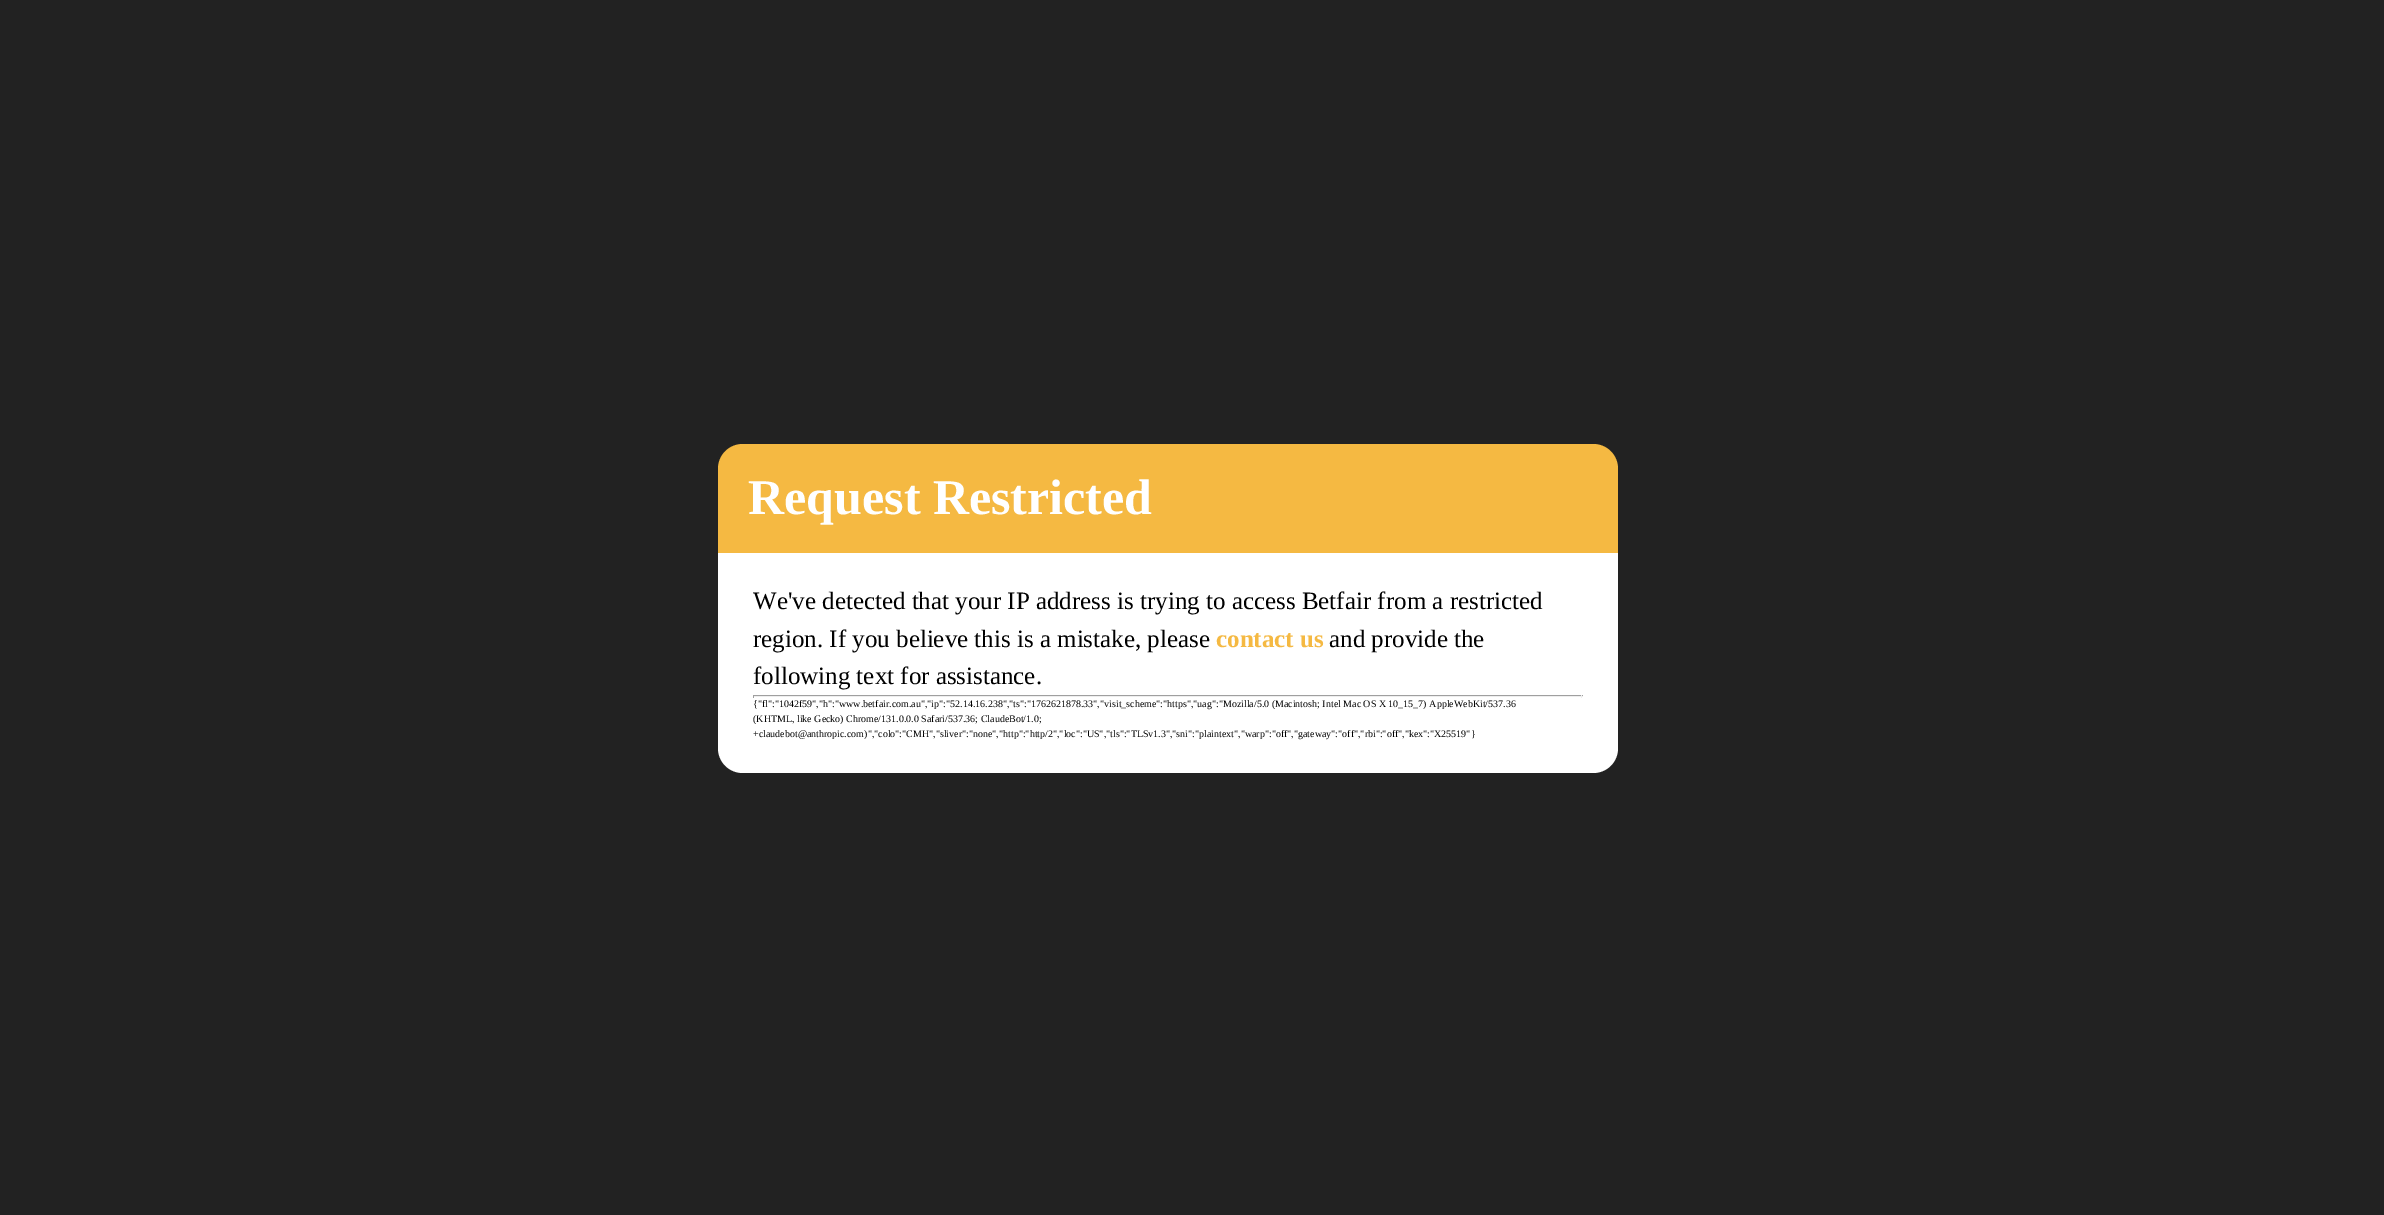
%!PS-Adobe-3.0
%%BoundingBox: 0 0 2384 1215
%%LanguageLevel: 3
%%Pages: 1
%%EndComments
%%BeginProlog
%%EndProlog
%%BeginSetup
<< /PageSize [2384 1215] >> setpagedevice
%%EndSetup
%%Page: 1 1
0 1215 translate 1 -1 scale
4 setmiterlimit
0.133 setgray
0 0 2384 1215 rectfill
0.961 0.725 0.259 setrgbcolor
newpath 743 444 moveto 1593 444 lineto 1607 444 1618 455 1618 469 curveto 1618 553 lineto 718 553 lineto 718 469 lineto 718 455 729 444 743 444 curveto closepath fill
1 setgray
newpath 718 553 moveto 1618 553 lineto 1618 748 lineto 1618 762 1607 773 1593 773 curveto 743 773 lineto 729 773 718 762 718 748 curveto closepath fill
0.624 setgray
753 695 830 1 rectfill
0.933 setgray
1581 695 1 3 rectfill
753 696 830 1 rectfill
0.624 setgray
753 695 1 3 rectfill
/LiberationSerif-Bold [50 0 0 -50 0 0] selectfont
1 setgray
748 514 moveto (Request Restricted) show
/LiberationSerif-Regular [25 0 0 -25 0 0] selectfont
0 setgray
753 609 moveto (We've detected that your IP address is trying to access Betfair from a restricted) show
753 647 moveto (region. If you believe this is a mistake, please) show
/LiberationSerif-Bold [25 0 0 -25 0 0] selectfont
0.961 0.725 0.259 setrgbcolor
1216 647 moveto (contact us) show
/LiberationSerif-Regular [25 0 0 -25 0 0] selectfont
0 setgray
1329 647 moveto (and provide the) show
753 684 moveto (following text for assistance.) show
/LiberationSerif-Regular [10 0 0 -10 0 0] selectfont
753 707 moveto ({"fl":"1042f59","h":"www.betfair.com.au","ip":"52.14.16.238","ts":"1762621878.33","visit_scheme":"https","uag":"Mozilla/5.0 \(Macintosh; Intel Mac OS X 10_15_7\) AppleWebKit/537.36) show
753 722 moveto (\(KHTML, like Gecko\) Chrome/131.0.0.0 Safari/537.36; ClaudeBot/1.0;) show
753 737 moveto (+claudebot@anthropic.com\)","colo":"CMH","sliver":"none","http":"http/2","loc":"US","tls":"TLSv1.3","sni":"plaintext","warp":"off","gateway":"off","rbi":"off","kex":"X25519"}) show
showpage
%%EOF
